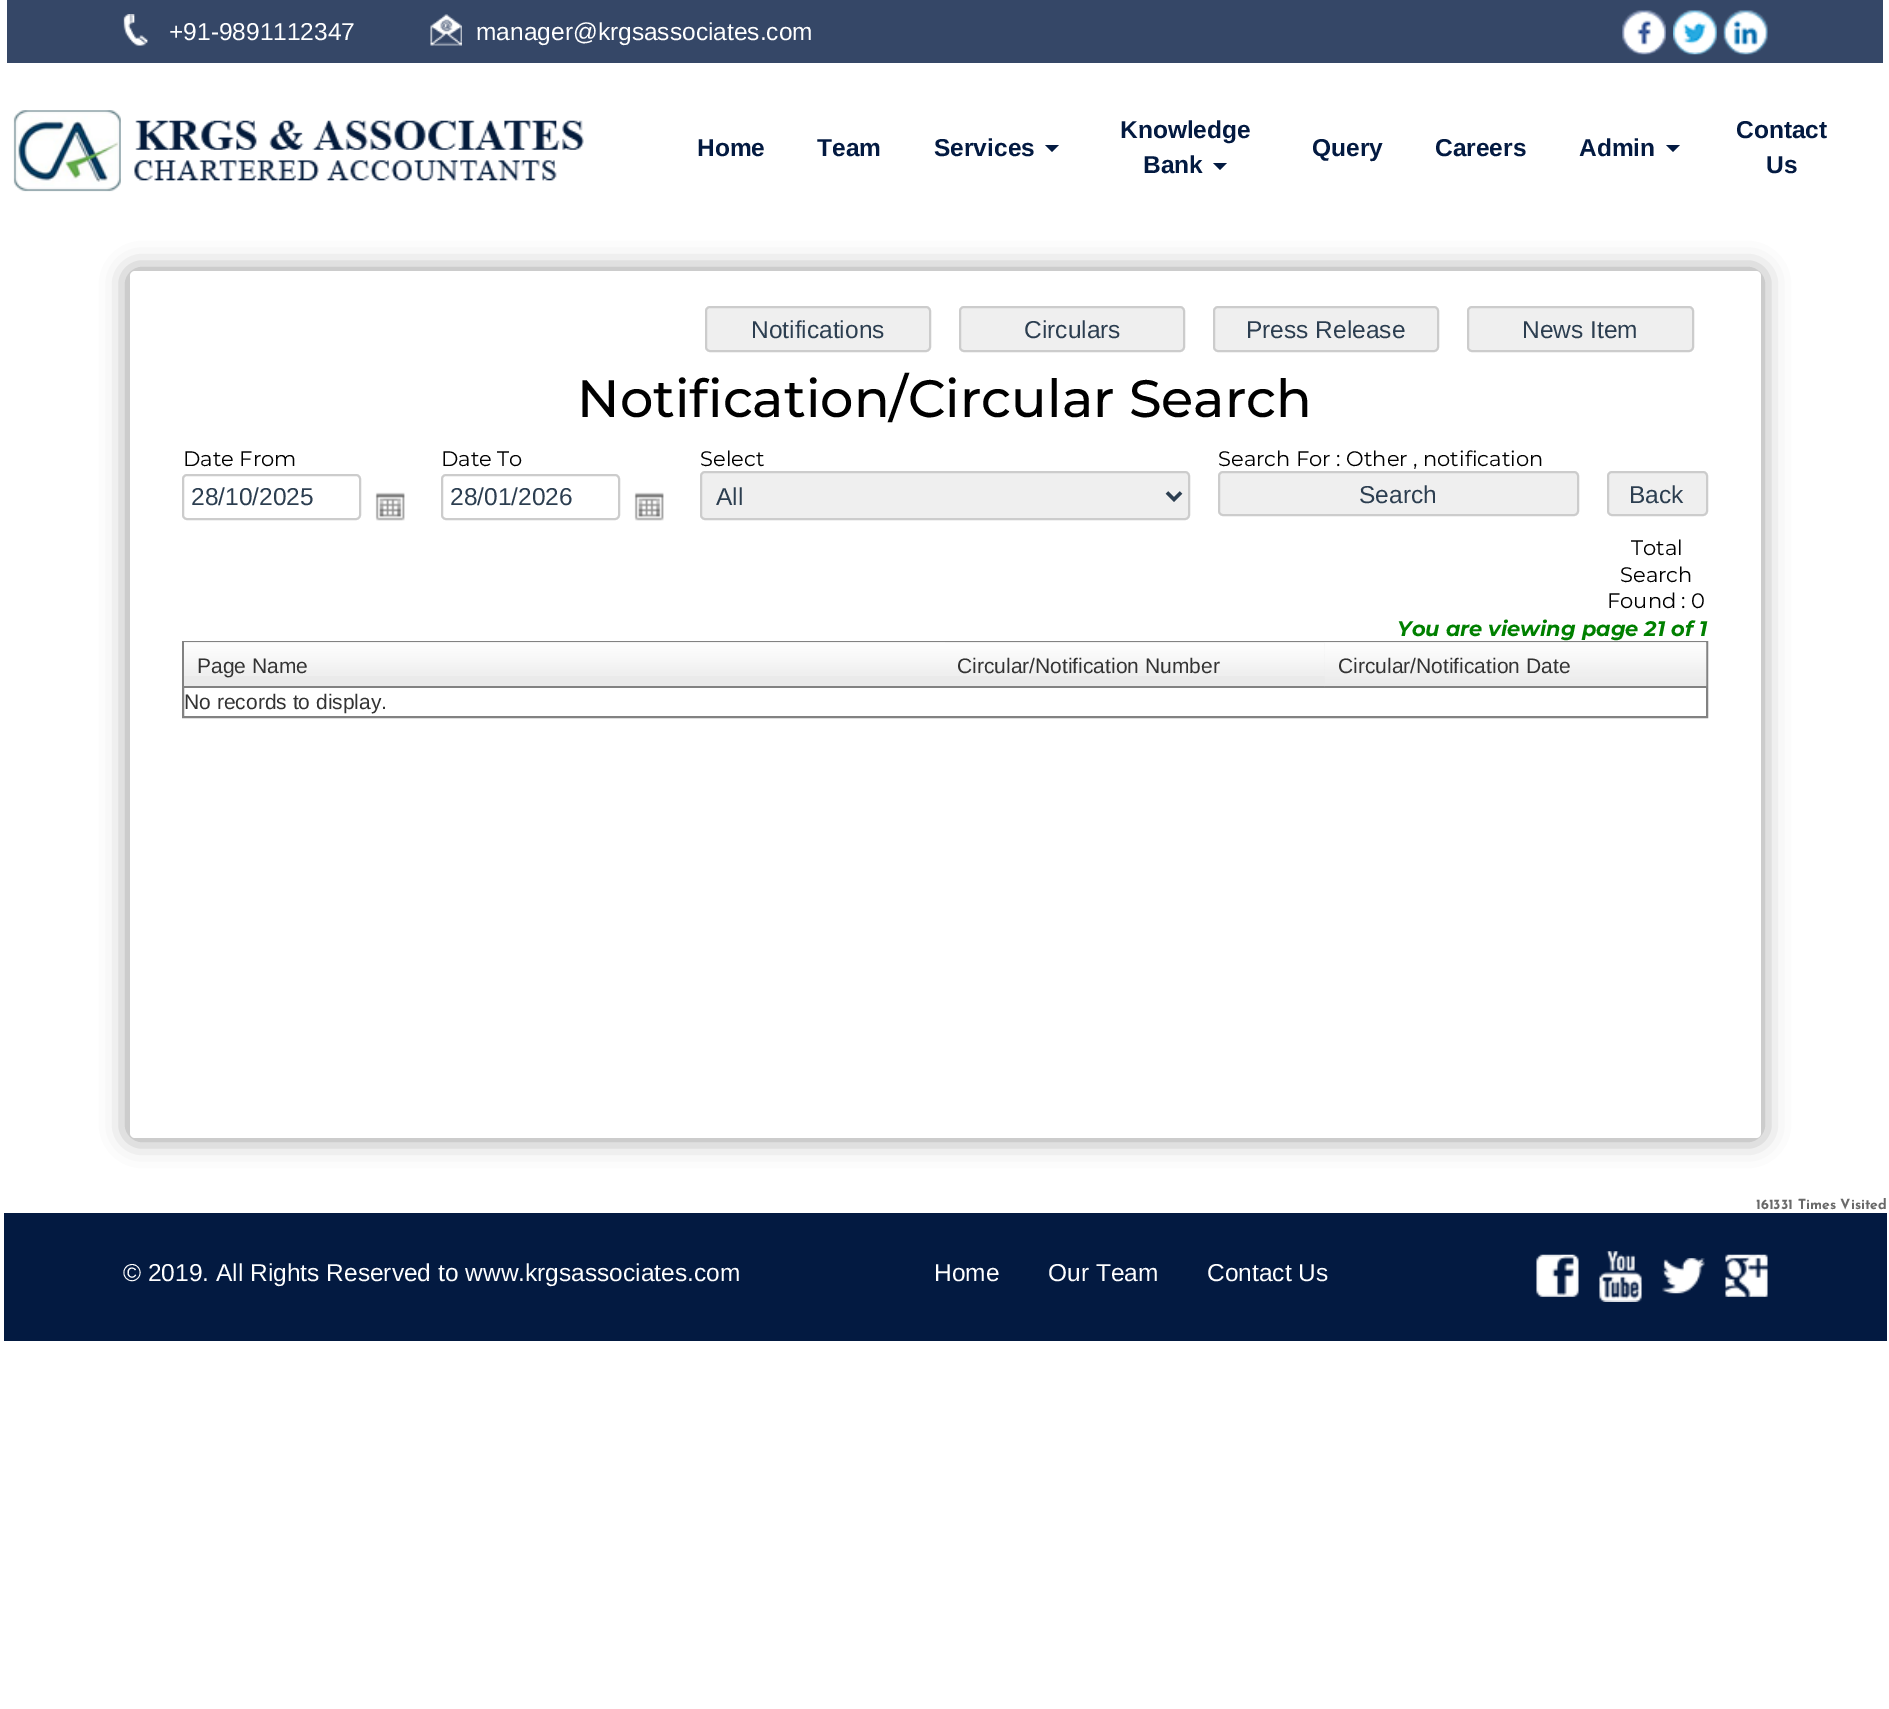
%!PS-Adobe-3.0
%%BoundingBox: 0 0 1889 1709
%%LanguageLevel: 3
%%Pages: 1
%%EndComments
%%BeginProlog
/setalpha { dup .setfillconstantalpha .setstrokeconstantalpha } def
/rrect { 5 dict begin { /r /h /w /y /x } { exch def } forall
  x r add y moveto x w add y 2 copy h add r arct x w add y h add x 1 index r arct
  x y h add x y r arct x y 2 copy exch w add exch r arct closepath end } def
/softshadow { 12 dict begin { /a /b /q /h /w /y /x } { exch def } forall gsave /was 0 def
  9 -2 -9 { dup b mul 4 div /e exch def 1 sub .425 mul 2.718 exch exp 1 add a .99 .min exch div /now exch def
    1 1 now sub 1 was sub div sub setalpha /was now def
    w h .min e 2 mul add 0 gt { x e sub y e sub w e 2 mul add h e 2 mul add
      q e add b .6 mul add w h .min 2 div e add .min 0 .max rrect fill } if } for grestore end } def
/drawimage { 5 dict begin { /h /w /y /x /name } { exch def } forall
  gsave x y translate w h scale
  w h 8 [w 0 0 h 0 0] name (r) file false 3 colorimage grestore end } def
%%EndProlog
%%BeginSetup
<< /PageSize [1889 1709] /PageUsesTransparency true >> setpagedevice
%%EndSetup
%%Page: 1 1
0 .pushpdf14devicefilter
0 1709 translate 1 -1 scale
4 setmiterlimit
1 setgray
0 0 1889 1709 rectfill
0.208 0.278 0.404 setrgbcolor
7 0 1876 63 rectfill
(images/1.raw) 123 14 25 32 drawimage
(images/2.raw) 430 14 32 32 drawimage
(images/3.raw) 1622 10 44 45 drawimage
(images/4.raw) 1673 10 44 45 drawimage
(images/5.raw) 1723 10 45 45 drawimage
(images/6.raw) 13 110 571 82 drawimage
0.012 0.102 0.255 setrgbcolor
newpath 1045 145 moveto 1059 145 lineto 1052 152 lineto closepath fill
newpath 1213 163 moveto 1227 163 lineto 1220 170 lineto closepath fill
newpath 1666 145 moveto 1680 145 lineto 1673 152 lineto closepath fill
0 setgray
128 270 1634 869 7 13 0.4 softshadow
1 setgray
130 271 1631 867 5 rrect fill
0.937 setgray
706 307 224 44 4 rrect gsave fill grestore
0.8 setgray
2 setlinewidth
stroke
0.937 setgray
960 307 224 44 4 rrect gsave fill grestore
0.8 setgray
stroke
0.937 setgray
1214 307 224 44 4 rrect gsave fill grestore
0.8 setgray
stroke
0.937 setgray
1468 307 225 44 4 rrect gsave fill grestore
0.8 setgray
stroke
183 475 177 44 4 rrect stroke
(images/7.raw) 375 492 30 29 drawimage
442 475 177 44 4 rrect stroke
(images/7.raw) 634 492 30 29 drawimage
0.937 setgray
701 472 488 47 4 rrect gsave fill grestore
0.8 setgray
stroke
0.173 0.243 0.314 setrgbcolor
3.5 setlinewidth
newpath 1167 492.5 moveto 1174 499.5 lineto 1181 492.5 lineto stroke
0.937 setgray
1219 472 359 43 4 rrect gsave fill grestore
0.8 setgray
2 setlinewidth
stroke
0.937 setgray
1608 472 99 43 4 rrect gsave fill grestore
0.8 setgray
stroke
0.51 setgray
183 642 1524 75 rectstroke
0.918 setgray
184 642 1522 44 rectfill
(images/8.raw) 184 642 761 34 drawimage
0.51 setgray
184 686 1141 2 rectfill
(images/9.raw) 945 642 380 34 drawimage
(images/10.raw) 1324 642 383 45 drawimage
1325 686 381 2 rectfill
0.012 0.102 0.255 setrgbcolor
4 1213 1883 128 rectfill
(images/11.raw) 1536 1254 43 43 drawimage
(images/12.raw) 1599 1251 43 51 drawimage
(images/13.raw) 1662 1258 43 36 drawimage
(images/14.raw) 1725 1254 43 43 drawimage
/LiberationSans-Regular [24.5 0 0 -24.5 0 0] selectfont
1 setgray
169 40 moveto (+91-9891112347) show
476 40 moveto (manager@krgsassociates.com) show
/LiberationSans-Bold [24.5 0 0 -24.5 0 0] selectfont
0.012 0.102 0.255 setrgbcolor
697 156 moveto (Home) show
817 156 moveto (Team) show
934 156 moveto (Services) show
1120 138 moveto (Knowledge) show
1143 173 moveto (Bank) show
1312 156 moveto (Query) show
1435 156 moveto (Careers) show
1579 156 moveto (Admin) show
1736 138 moveto (Contact) show
1766 173 moveto (Us) show
/LiberationSans-Regular [24.5 0 0 -24.5 0 0] selectfont
0.173 0.243 0.314 setrgbcolor
751 338 moveto (Notifications) show
1024 338 moveto (Circulars) show
1246 338 moveto (Press Release) show
1522 338 moveto (News Item) show
/Montserrat-Medium [52.5 0 0 -52.5 0 0] selectfont
0 setgray
577 417 moveto (Notification/Circular Search) show
/Montserrat-Regular [21 0 0 -21 0 0] selectfont
183 466 moveto (Date From) show
/LiberationSans-Regular [24.5 0 0 -24.5 0 0] selectfont
0.173 0.243 0.314 setrgbcolor
191 505 moveto (28/10/2025) show
/Montserrat-Regular [21 0 0 -21 0 0] selectfont
0 setgray
441 466 moveto (Date To) show
/LiberationSans-Regular [24.5 0 0 -24.5 0 0] selectfont
0.173 0.243 0.314 setrgbcolor
450 505 moveto (28/01/2026) show
/Montserrat-Regular [21 0 0 -21 0 0] selectfont
0 setgray
700 466 moveto (Select) show
/LiberationSans-Regular [24.5 0 0 -24.5 0 0] selectfont
0.173 0.243 0.314 setrgbcolor
716 505 moveto (All) show
/Montserrat-Regular [21 0 0 -21 0 0] selectfont
0 setgray
1218 466 moveto (Search For : Other , notification) show
/LiberationSans-Regular [24.5 0 0 -24.5 0 0] selectfont
0.173 0.243 0.314 setrgbcolor
1359 503 moveto (Search) show
1629 503 moveto (Back) show
/Montserrat-Regular [21 0 0 -21 0 0] selectfont
0 setgray
1631 555 moveto (Total) show
1620 582 moveto (Search) show
1607 608 moveto (Found : 0) show
/Montserrat-BoldItalic [21 0 0 -21 0 0] selectfont
0 0.502 0 setrgbcolor
1397 636 moveto (You are viewing page 21 of 1) show
/LiberationSans-Regular [21 0 0 -21 0 0] selectfont
0.2 setgray
197 673 moveto (Page Name) show
957 673 moveto (Circular/Notification Number) show
1338 673 moveto (Circular/Notification Date) show
184 709 moveto (No records to display.) show
/JosefinSans-Bold [14 0 0 -14 0 0] selectfont
0.412 setgray
1756 1209 moveto (161331 Times Visited) show
/LiberationSans-Regular [24.5 0 0 -24.5 0 0] selectfont
1 setgray
123 1281 moveto (© 2019. All Rights Reserved to www.krgsassociates.com) show
934 1281 moveto (Home) show
1048 1281 moveto (Our Team) show
1207 1281 moveto (Contact Us) show
.poppdf14devicefilter showpage
%%EOF
